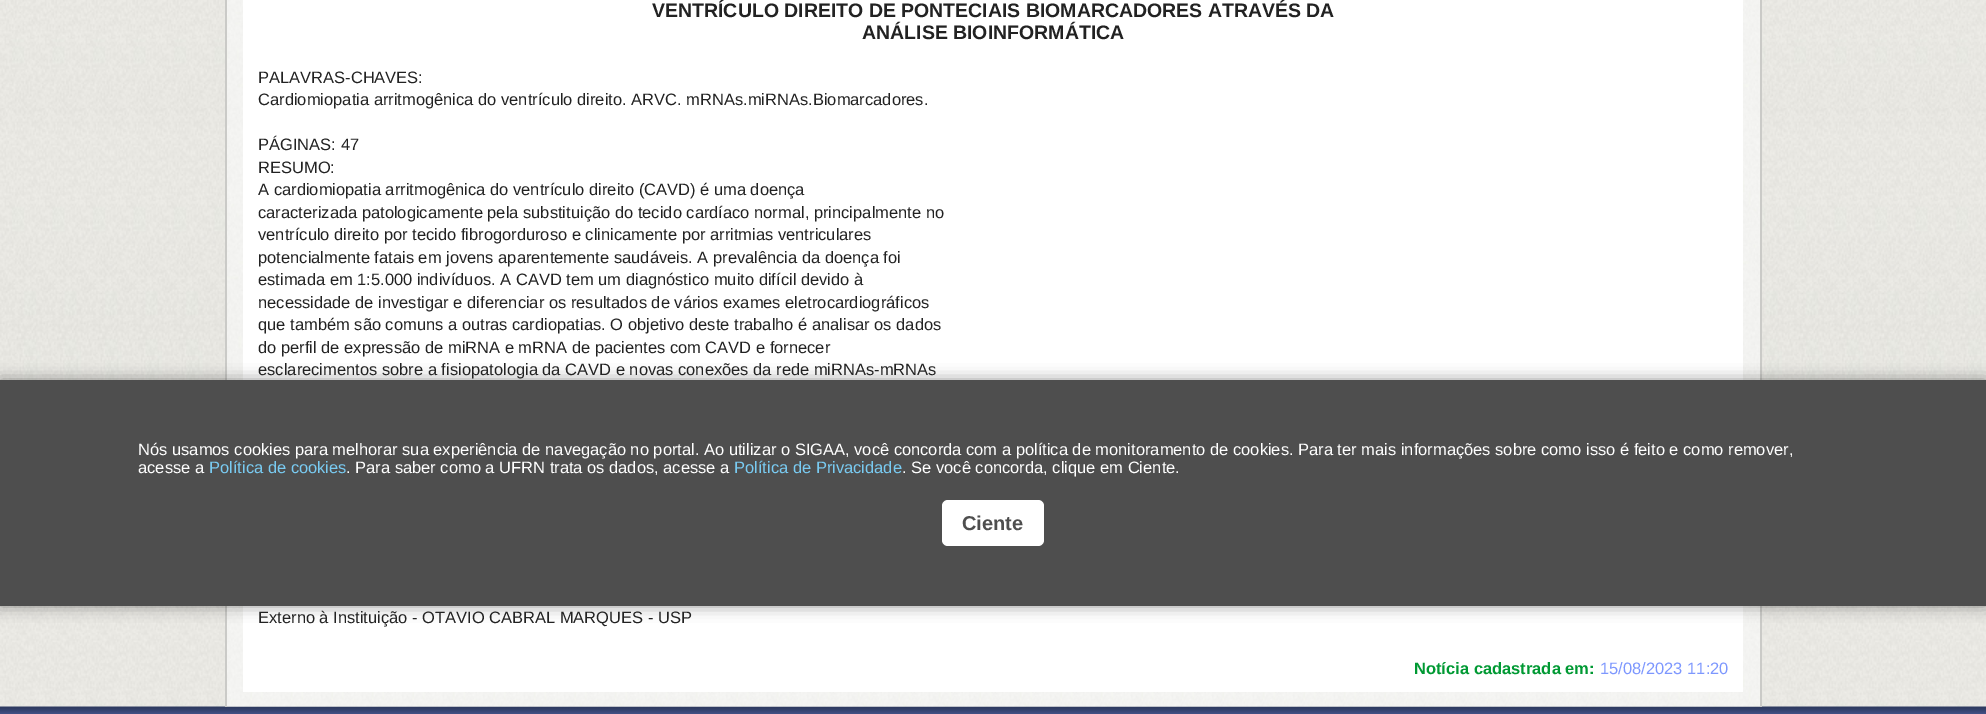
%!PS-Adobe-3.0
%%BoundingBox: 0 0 1986 714
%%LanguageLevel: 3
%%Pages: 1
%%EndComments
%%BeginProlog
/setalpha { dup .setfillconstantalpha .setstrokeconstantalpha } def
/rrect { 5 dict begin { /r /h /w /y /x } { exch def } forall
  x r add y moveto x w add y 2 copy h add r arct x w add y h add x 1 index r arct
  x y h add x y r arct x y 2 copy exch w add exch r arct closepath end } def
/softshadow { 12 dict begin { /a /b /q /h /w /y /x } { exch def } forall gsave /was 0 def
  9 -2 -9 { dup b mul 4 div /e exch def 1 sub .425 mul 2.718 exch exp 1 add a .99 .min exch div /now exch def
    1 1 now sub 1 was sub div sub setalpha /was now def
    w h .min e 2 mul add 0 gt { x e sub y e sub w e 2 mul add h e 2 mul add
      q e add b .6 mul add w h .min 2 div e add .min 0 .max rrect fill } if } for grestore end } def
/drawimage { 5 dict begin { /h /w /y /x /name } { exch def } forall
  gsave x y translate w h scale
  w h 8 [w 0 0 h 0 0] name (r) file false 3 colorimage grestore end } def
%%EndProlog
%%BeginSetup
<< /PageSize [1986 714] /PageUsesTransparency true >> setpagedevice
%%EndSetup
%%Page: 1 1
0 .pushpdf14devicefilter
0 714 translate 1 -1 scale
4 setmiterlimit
1 setgray
0 0 1986 714 rectfill
(images/1.raw) 0 0 1986 707 drawimage
(images/2.raw) 0 706 1986 8 drawimage
(images/3.raw) 227 0 1533 707 drawimage
0.792 0.792 0.78 setrgbcolor
1760 0 2 707 rectfill
225 0 2 707 rectfill
1 setgray
243 0 1500 692 rectfill
0 setgray
0 380 1986 226 0 7.5 0.4 softshadow
0.306 setgray
0 380 1986 226 rectfill
1 setgray
942 500 102 46 6 rrect fill
/LiberationSans-Bold [19.5 0 0 -19.5 0 0] selectfont
0.133 setgray
652 17 moveto (VENTRÍCULO DIREITO DE PONTECIAIS BIOMARCADORES ATRAVÉS DA) show
862 39 moveto (ANÁLISE BIOINFORMÁTICA) show
/LiberationSans-Regular [16.5 0 0 -16.5 0 0] selectfont
258 83 moveto (PALAVRAS-CHAVES:) show
258 105 moveto (Cardiomiopatia arritmogênica do ventrículo direito. ARVC. mRNAs.miRNAs.Biomarcadores.) show
258 150 moveto (PÁGINAS: 47) show
258 173 moveto (RESUMO:) show
258 195 moveto (A cardiomiopatia arritmogênica do ventrículo direito \(CAVD\) é uma doença) show
258 218 moveto (caracterizada patologicamente pela substituição do tecido cardíaco normal, principalmente no) show
258 240 moveto (ventrículo direito por tecido fibrogorduroso e clinicamente por arritmias ventriculares) show
258 263 moveto (potencialmente fatais em jovens aparentemente saudáveis. A prevalência da doença foi) show
258 285 moveto (estimada em 1:5.000 indivíduos. A CAVD tem um diagnóstico muito difícil devido à) show
258 308 moveto (necessidade de investigar e diferenciar os resultados de vários exames eletrocardiográficos) show
258 330 moveto (que também são comuns a outras cardiopatias. O objetivo deste trabalho é analisar os dados) show
258 353 moveto (do perfil de expressão de miRNA e mRNA de pacientes com CAVD e fornecer) show
258 375 moveto (esclarecimentos sobre a fisiopatologia da CAVD e novas conexões da rede miRNAs-mRNAs) show
258 623 moveto (Externo à Instituição - OTAVIO CABRAL MARQUES - USP) show
/LiberationSans-Bold [16.5 0 0 -16.5 0 0] selectfont
0 0.6 0.2 setrgbcolor
1414 674 moveto (Notícia cadastrada em:) show
/LiberationSans-Regular [16.5 0 0 -16.5 0 0] selectfont
0.49 0.592 0.996 setrgbcolor
1600 674 moveto (15/08/2023 11:20) show
1 setgray
138 455 moveto (Nós usamos cookies para melhorar sua experiência de navegação no portal. Ao utilizar o SIGAA, você concorda com a política de monitoramento de cookies. Para ter mais informações sobre como isso é feito e como remover,) show
138 473 moveto (acesse a) show
0.475 0.796 0.949 setrgbcolor
209 473 moveto (Política de cookies) show
1 setgray
346 473 moveto (. Para saber como a UFRN trata os dados, acesse a) show
0.475 0.796 0.949 setrgbcolor
734 473 moveto (Política de Privacidade) show
1 setgray
902 473 moveto (. Se você concorda, clique em Ciente.) show
/LiberationSans-Bold [20 0 0 -20 0 0] selectfont
0.306 setgray
962 530 moveto (Ciente) show
.poppdf14devicefilter showpage
%%EOF
